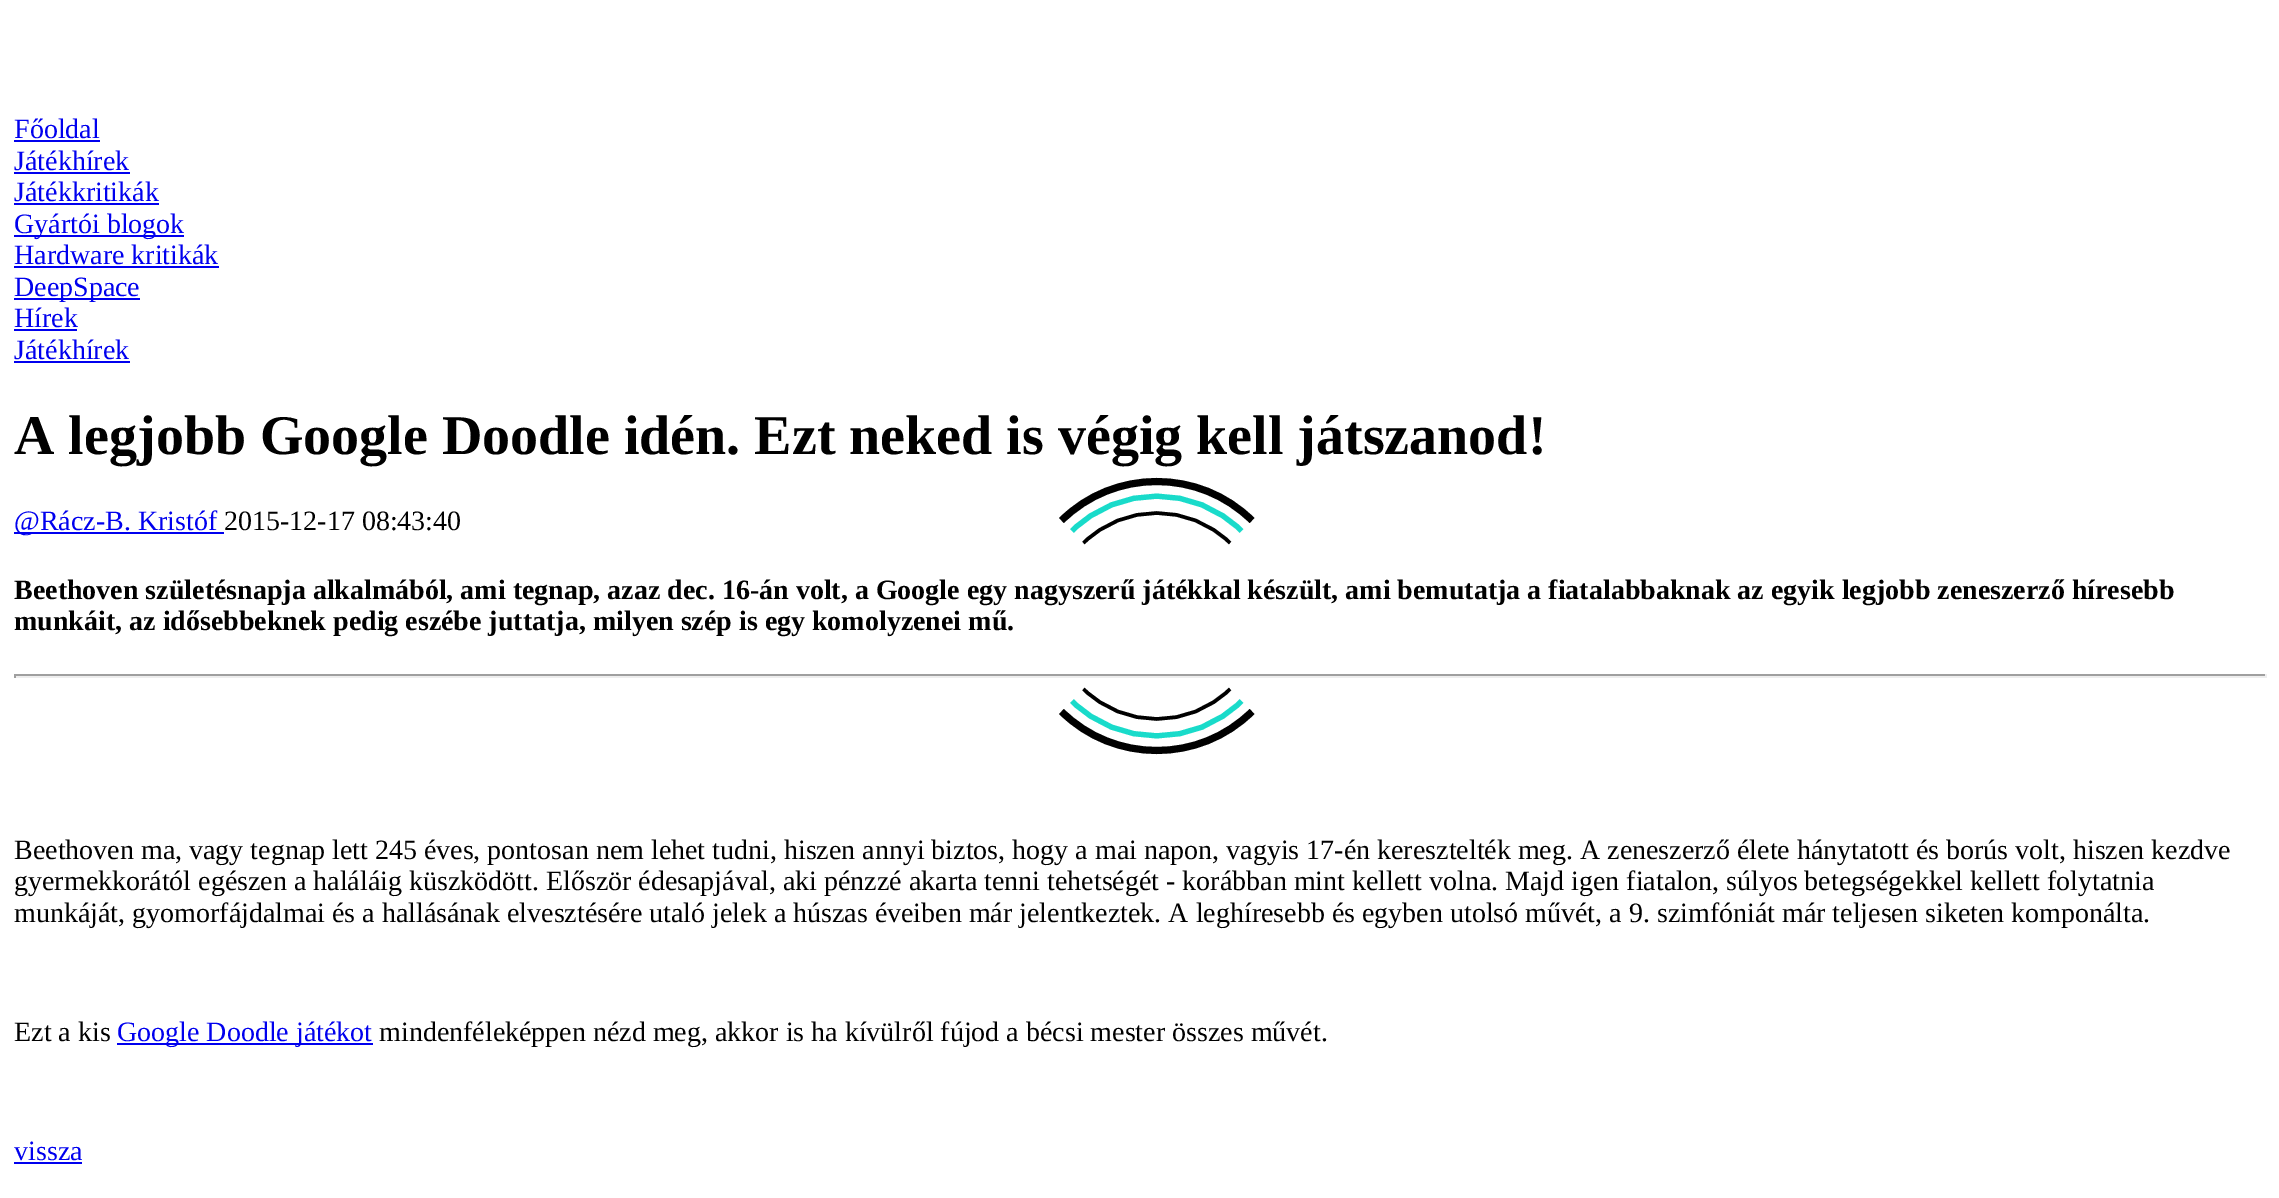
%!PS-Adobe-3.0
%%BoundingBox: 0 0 2279 1198
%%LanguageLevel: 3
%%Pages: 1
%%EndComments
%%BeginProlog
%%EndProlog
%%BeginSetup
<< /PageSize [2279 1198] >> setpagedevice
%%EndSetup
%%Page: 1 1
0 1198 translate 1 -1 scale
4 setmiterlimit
1 setgray
0 0 2279 1198 rectfill
0 0 0.933 setrgbcolor
14 140 86 2 rectfill
14 172 116 2 rectfill
14 203 145 2 rectfill
14 235 170 2 rectfill
14 266 205 2 rectfill
14 298 126 2 rectfill
14 329 63 2 rectfill
14 361 116 2 rectfill
14 532 210 2 rectfill
0.624 setgray
14 674 2252 2 rectfill
0.933 setgray
2265 674 2 4 rectfill
14 676 2252 2 rectfill
0.624 setgray
14 674 2 4 rectfill
0 0 0.933 setrgbcolor
117 1043 256 2 rectfill
14 1162 68 2 rectfill
0 setgray
7 setlinewidth
newpath 1061.5 520.5 moveto 1114 468.5 1199.5 468.5 1252 520.5 curveto stroke
newpath 1252 711.5 moveto 1199.5 763.5 1114 763.5 1061.5 711.5 curveto stroke
0.098 0.859 0.792 setrgbcolor
5.2 setlinewidth
newpath 1072 531 moveto 1118.5 484.5 1195 484.5 1241.5 531 curveto stroke
newpath 1241.5 701 moveto 1195 747.5 1118.5 747.5 1072 701 curveto stroke
0 setgray
3.5 setlinewidth
newpath 1083.5 543 moveto 1124 503 1189.5 503 1230 543 curveto stroke
newpath 1230 689 moveto 1189.5 729 1124 729 1083.5 689 curveto stroke
/LiberationSerif-Regular [28 0 0 -28 0 0] selectfont
0 0 0.933 setrgbcolor
14 138 moveto (Főoldal) show
14 170 moveto (Játékhírek) show
14 201 moveto (Játékkritikák) show
14 233 moveto (Gyártói blogok) show
14 264 moveto (Hardware kritikák) show
14 296 moveto (DeepSpace) show
14 327 moveto (Hírek) show
14 359 moveto (Játékhírek) show
/LiberationSerif-Bold [56 0 0 -56 0 0] selectfont
0 setgray
14 454 moveto (A legjobb Google Doodle idén. Ezt neked is végig kell játszanod!) show
/LiberationSerif-Regular [28 0 0 -28 0 0] selectfont
0 0 0.933 setrgbcolor
14 530 moveto (@Rácz-B. Kristóf) show
0 setgray
224 530 moveto (2015-12-17 08:43:40) show
/LiberationSerif-Bold [28 0 0 -28 0 0] selectfont
14 599 moveto (Beethoven születésnapja alkalmából, ami tegnap, azaz dec. 16-án volt, a Google egy nagyszerű játékkal készült, ami bemutatja a fiatalabbaknak az egyik legjobb zeneszerző híresebb) show
14 630 moveto (munkáit, az idősebbeknek pedig eszébe juttatja, milyen szép is egy komolyzenei mű.) show
/LiberationSerif-Regular [28 0 0 -28 0 0] selectfont
14 859 moveto (Beethoven ma, vagy tegnap lett 245 éves, pontosan nem lehet tudni, hiszen annyi biztos, hogy a mai napon, vagyis 17-én keresztelték meg. A zeneszerző élete hánytatott és borús volt, hiszen kezdve) show
14 890 moveto (gyermekkorától egészen a haláláig küszködött. Először édesapjával, aki pénzzé akarta tenni tehetségét - korábban mint kellett volna. Majd igen fiatalon, súlyos betegségekkel kellett folytatnia) show
14 922 moveto (munkáját, gyomorfájdalmai és a hallásának elvesztésére utaló jelek a húszas éveiben már jelentkeztek. A leghíresebb és egyben utolsó művét, a 9. szimfóniát már teljesen siketen komponálta.) show
14 1041 moveto (Ezt a kis) show
0 0 0.933 setrgbcolor
117 1041 moveto (Google Doodle játékot) show
0 setgray
379 1041 moveto (mindenféleképpen nézd meg, akkor is ha kívülről fújod a bécsi mester összes művét.) show
0 0 0.933 setrgbcolor
14 1160 moveto (vissza) show
showpage
%%EOF
